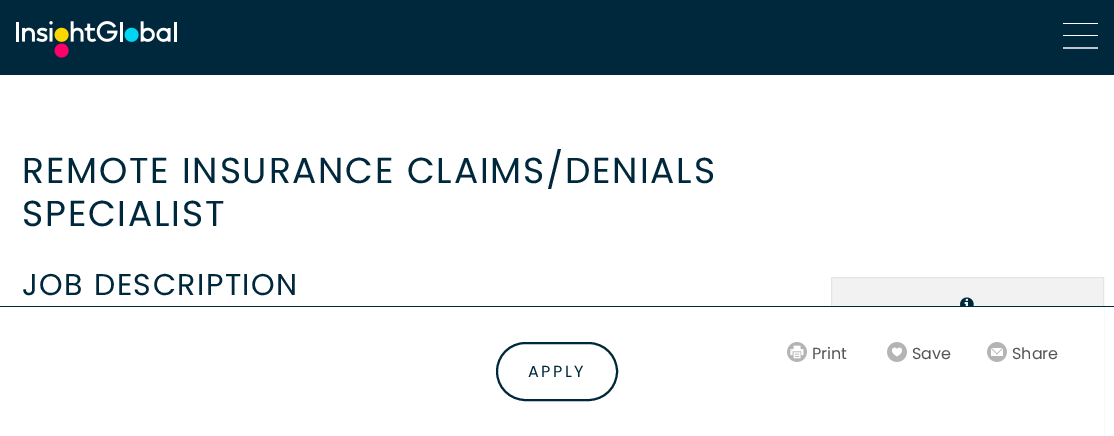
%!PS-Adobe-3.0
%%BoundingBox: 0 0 1114 436
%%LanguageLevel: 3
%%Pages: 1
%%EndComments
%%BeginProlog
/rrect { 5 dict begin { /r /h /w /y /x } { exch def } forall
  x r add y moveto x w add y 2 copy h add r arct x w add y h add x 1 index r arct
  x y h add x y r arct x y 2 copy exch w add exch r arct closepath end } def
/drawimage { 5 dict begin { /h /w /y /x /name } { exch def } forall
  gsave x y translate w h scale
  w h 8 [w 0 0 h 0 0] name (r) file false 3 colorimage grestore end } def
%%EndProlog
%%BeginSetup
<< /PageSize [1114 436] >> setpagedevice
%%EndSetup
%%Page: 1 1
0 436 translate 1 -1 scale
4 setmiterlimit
1 setgray
0 0 1114 436 rectfill
0 0.157 0.235 setrgbcolor
0 0 1114 75 rectfill
(images/1.raw) 16 21 161 37 drawimage
1 setgray
1063 23 35 1 rectfill
1063 35 35 1 rectfill
1.2 setlinewidth
newpath 1063 48 moveto 1098 48 lineto stroke
0.949 setgray
832 278 271 28 rectfill
0.898 setgray
1 setlinewidth
831.5 277.5 272 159 rectstroke
(images/2.raw) 960 297 14 9 drawimage
1 setgray
831 307 273 129 rectfill
0 0.157 0.235 setrgbcolor
0 306 1114 1 rectfill
(images/3.raw) 787 342 20 20 drawimage
(images/4.raw) 887 342 20 20 drawimage
(images/5.raw) 987 342 20 20 drawimage
2 setlinewidth
497 343 120 57 28.5 rrect stroke
/Poppins-Regular [36 0 0 -36 0 0] selectfont
22 183 moveto 1.8 0 (REMOTE INSURANCE CLAIMS/DENIALS) ashow
22 226 moveto 1.8 0 (SPECIALIST) ashow
/Poppins-Regular [30 0 0 -30 0 0] selectfont
22 295 moveto 1.5 0 (JOB DESCRIPTION) ashow
/Poppins-Regular [16 0 0 -16 0 0] selectfont
0.333 setgray
812 359 moveto (Print) show
912 359 moveto (Save) show
1012 359 moveto (Share) show
0 0.157 0.235 setrgbcolor
528 377 moveto 2.5 0 (APPLY) ashow
showpage
%%EOF
